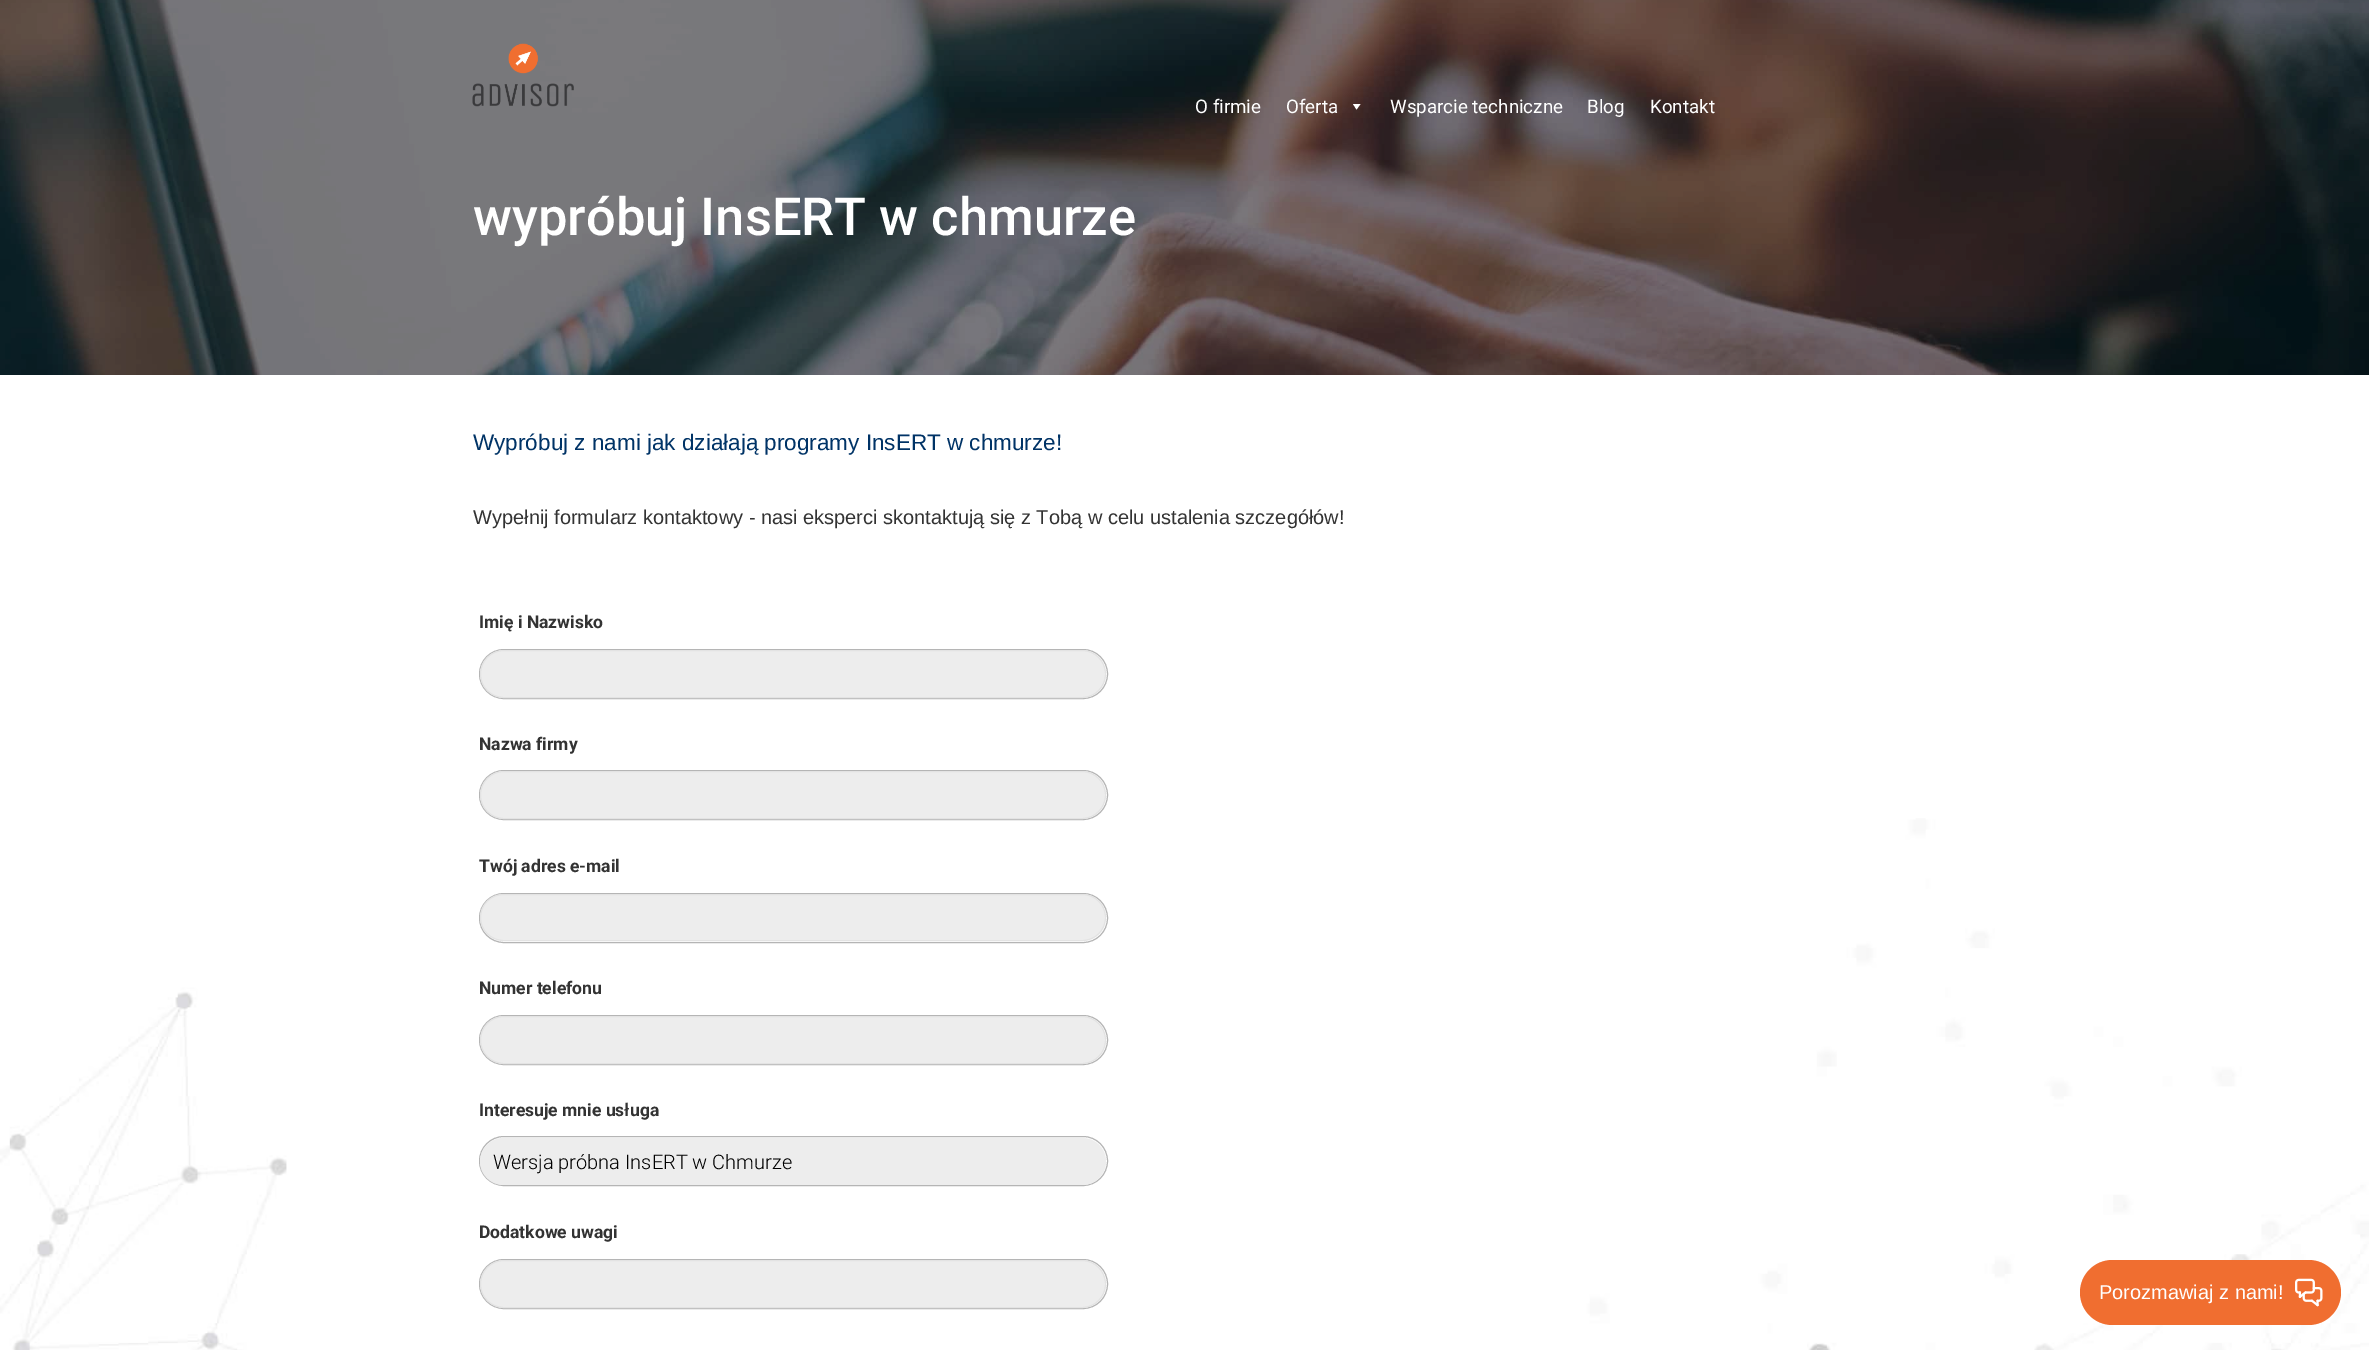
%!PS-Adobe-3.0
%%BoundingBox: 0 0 2369 1350
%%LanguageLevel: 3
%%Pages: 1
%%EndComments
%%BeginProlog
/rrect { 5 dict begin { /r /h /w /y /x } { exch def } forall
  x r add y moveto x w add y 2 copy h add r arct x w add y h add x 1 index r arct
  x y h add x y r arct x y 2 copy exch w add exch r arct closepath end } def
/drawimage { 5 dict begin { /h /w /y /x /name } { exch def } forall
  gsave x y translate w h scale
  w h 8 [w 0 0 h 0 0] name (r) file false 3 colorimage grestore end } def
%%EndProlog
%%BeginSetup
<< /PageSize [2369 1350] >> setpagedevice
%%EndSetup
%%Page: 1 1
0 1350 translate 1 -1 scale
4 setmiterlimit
1 setgray
0 0 2369 1350 rectfill
(images/1.raw) 0 818 2369 532 drawimage
(images/3.raw) 0 0 2369 375 drawimage
(images/2.raw) 472 43 102 64 drawimage
newpath 1360.5 104 moveto 1356.5 109.5 lineto 1353 104 lineto closepath fill
0.71 setgray
479.5 649.5 628 49 24.5 rrect stroke
0.929 setgray
480.5 650.5 625 47 23.5 rrect gsave fill grestore
0.89 setgray
stroke
0.71 setgray
479.5 770.5 628 49 24.5 rrect stroke
0.929 setgray
480.5 771.5 625 47 23.5 rrect gsave fill grestore
0.89 setgray
stroke
0.71 setgray
479.5 893.5 628 49 24.5 rrect stroke
0.929 setgray
480.5 894.5 625 46 23 rrect gsave fill grestore
0.89 setgray
stroke
0.71 setgray
479.5 1015.5 628 49 24.5 rrect stroke
0.929 setgray
480.5 1016.5 625 47 23.5 rrect gsave fill grestore
0.89 setgray
stroke
0.71 setgray
479.5 1136.5 628 49 24.5 rrect stroke
0.929 setgray
480 1138 626 47 23.5 rrect fill
0.71 setgray
479.5 1259.5 628 49 24.5 rrect stroke
0.929 setgray
480.5 1260.5 625 47 23.5 rrect gsave fill grestore
0.89 setgray
stroke
0.941 0.431 0.188 setrgbcolor
2080 1260 261 65 32.5 rrect fill
(images/4.raw) 2295 1278 28 29 drawimage
/Roboto-Regular [18.75 0 0 -18.75 0 0] selectfont
1 setgray
1195 113 moveto (O firmie) show
1286 113 moveto (Oferta) show
1390 113 moveto (Wsparcie techniczne) show
1587 113 moveto (Blog) show
1650 113 moveto (Kontakt) show
/Roboto-Medium [52.5 0 0 -52.5 0 0] selectfont
473 235 moveto (wypróbuj InsERT w chmurze) show
/LiberationSans-Regular [22.5 0 0 -22.5 0 0] selectfont
0 0.2 0.4 setrgbcolor
473 450 moveto (Wypróbuj z nami jak działają programy InsERT w chmurze!) show
/LiberationSans-Regular [20 0 0 -20 0 0] selectfont
0.2 setgray
473 524 moveto (Wypełnij formularz kontaktowy - nasi eksperci skontaktują się z Tobą w celu ustalenia szczegółów!) show
/Roboto-Bold [17.5 0 0 -17.5 0 0] selectfont
479 628 moveto (Imię i Nazwisko) show
479 750 moveto (Nazwa firmy) show
479 872 moveto (Twój adres e-mail) show
479 994 moveto (Numer telefonu) show
479 1116 moveto (Interesuje mnie usługa) show
/Roboto-Light [20 0 0 -20 0 0] selectfont
0 setgray
493 1169 moveto (Wersja próbna InsERT w Chmurze) show
/Roboto-Bold [17.5 0 0 -17.5 0 0] selectfont
0.2 setgray
479 1238 moveto (Dodatkowe uwagi) show
/LiberationSans-Regular [20 0 0 -20 0 0] selectfont
1 setgray
2099 1299 moveto (Porozmawiaj z nami!) show
showpage
%%EOF
